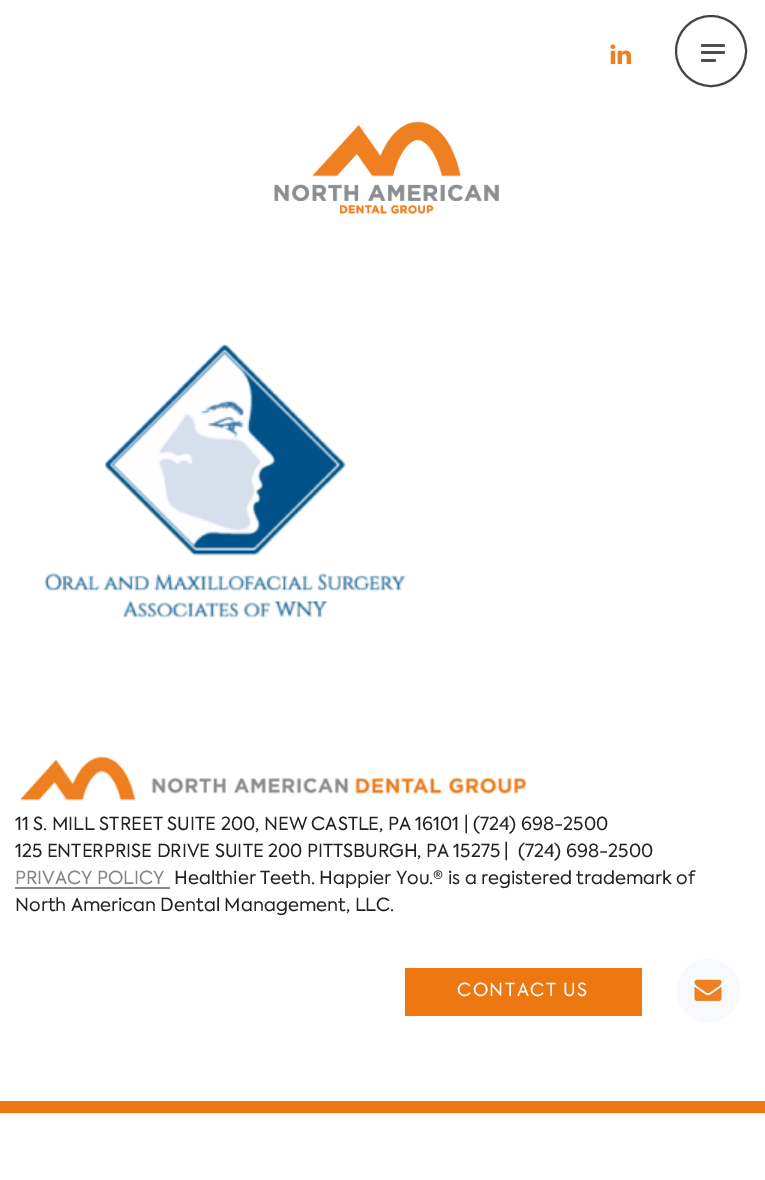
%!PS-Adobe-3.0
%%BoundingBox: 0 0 765 1180
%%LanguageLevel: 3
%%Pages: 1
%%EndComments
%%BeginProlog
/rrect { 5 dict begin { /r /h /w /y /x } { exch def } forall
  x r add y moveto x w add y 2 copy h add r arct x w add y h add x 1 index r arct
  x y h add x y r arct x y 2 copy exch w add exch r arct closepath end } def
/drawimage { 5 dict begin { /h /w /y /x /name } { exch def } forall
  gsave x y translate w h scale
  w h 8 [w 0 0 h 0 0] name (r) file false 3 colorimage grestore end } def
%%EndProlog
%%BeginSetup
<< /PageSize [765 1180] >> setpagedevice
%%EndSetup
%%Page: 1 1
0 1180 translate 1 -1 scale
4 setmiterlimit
1 setgray
0 0 765 1180 rectfill
(images/1.raw) 610 44 22 21 drawimage
0.267 setgray
2 setlinewidth
newpath 711 51 35 0 360 arc closepath stroke
0.306 setgray
701 59 15 3 1.5 rrect fill
701 44 24 3 1.5 rrect fill
701 51 24 3 1.5 rrect fill
(images/2.raw) 274 121 225 93 drawimage
(images/3.raw) 44 344 362 274 drawimage
0.929 0.471 0.067 setrgbcolor
0 1101 765 12 rectfill
(images/4.raw) 19 756 508 45 drawimage
0.518 0.525 0.537 setrgbcolor
15 887 155 2 rectfill
0.929 0.471 0.067 setrgbcolor
405 968 237 48 rectfill
0.973 0.976 0.988 setrgbcolor
newpath 708.5 990.5 31.5 0 360 arc closepath fill
(images/5.raw) 694 979 28 22 drawimage
/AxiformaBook-Regular [18 0 0 -18 0 0] selectfont
0.133 setgray
15 830 moveto (11 S. MILL STREET SUITE 200, NEW CASTLE, PA 16101 | \(724\) 698-2500) show
15 857 moveto (125 ENTERPRISE DRIVE SUITE 200 PITTSBURGH, PA 15275 |  \(724\) 698-2500) show
0.518 0.525 0.537 setrgbcolor
15 884 moveto (PRIVACY POLICY) show
0.133 setgray
174 884 moveto (Healthier Teeth. Happier You.® is a registered trademark of) show
15 911 moveto (North American Dental Management, LLC.) show
1 setgray
457 996 moveto 1.5 0 (CONTACT US) ashow
showpage
%%EOF
